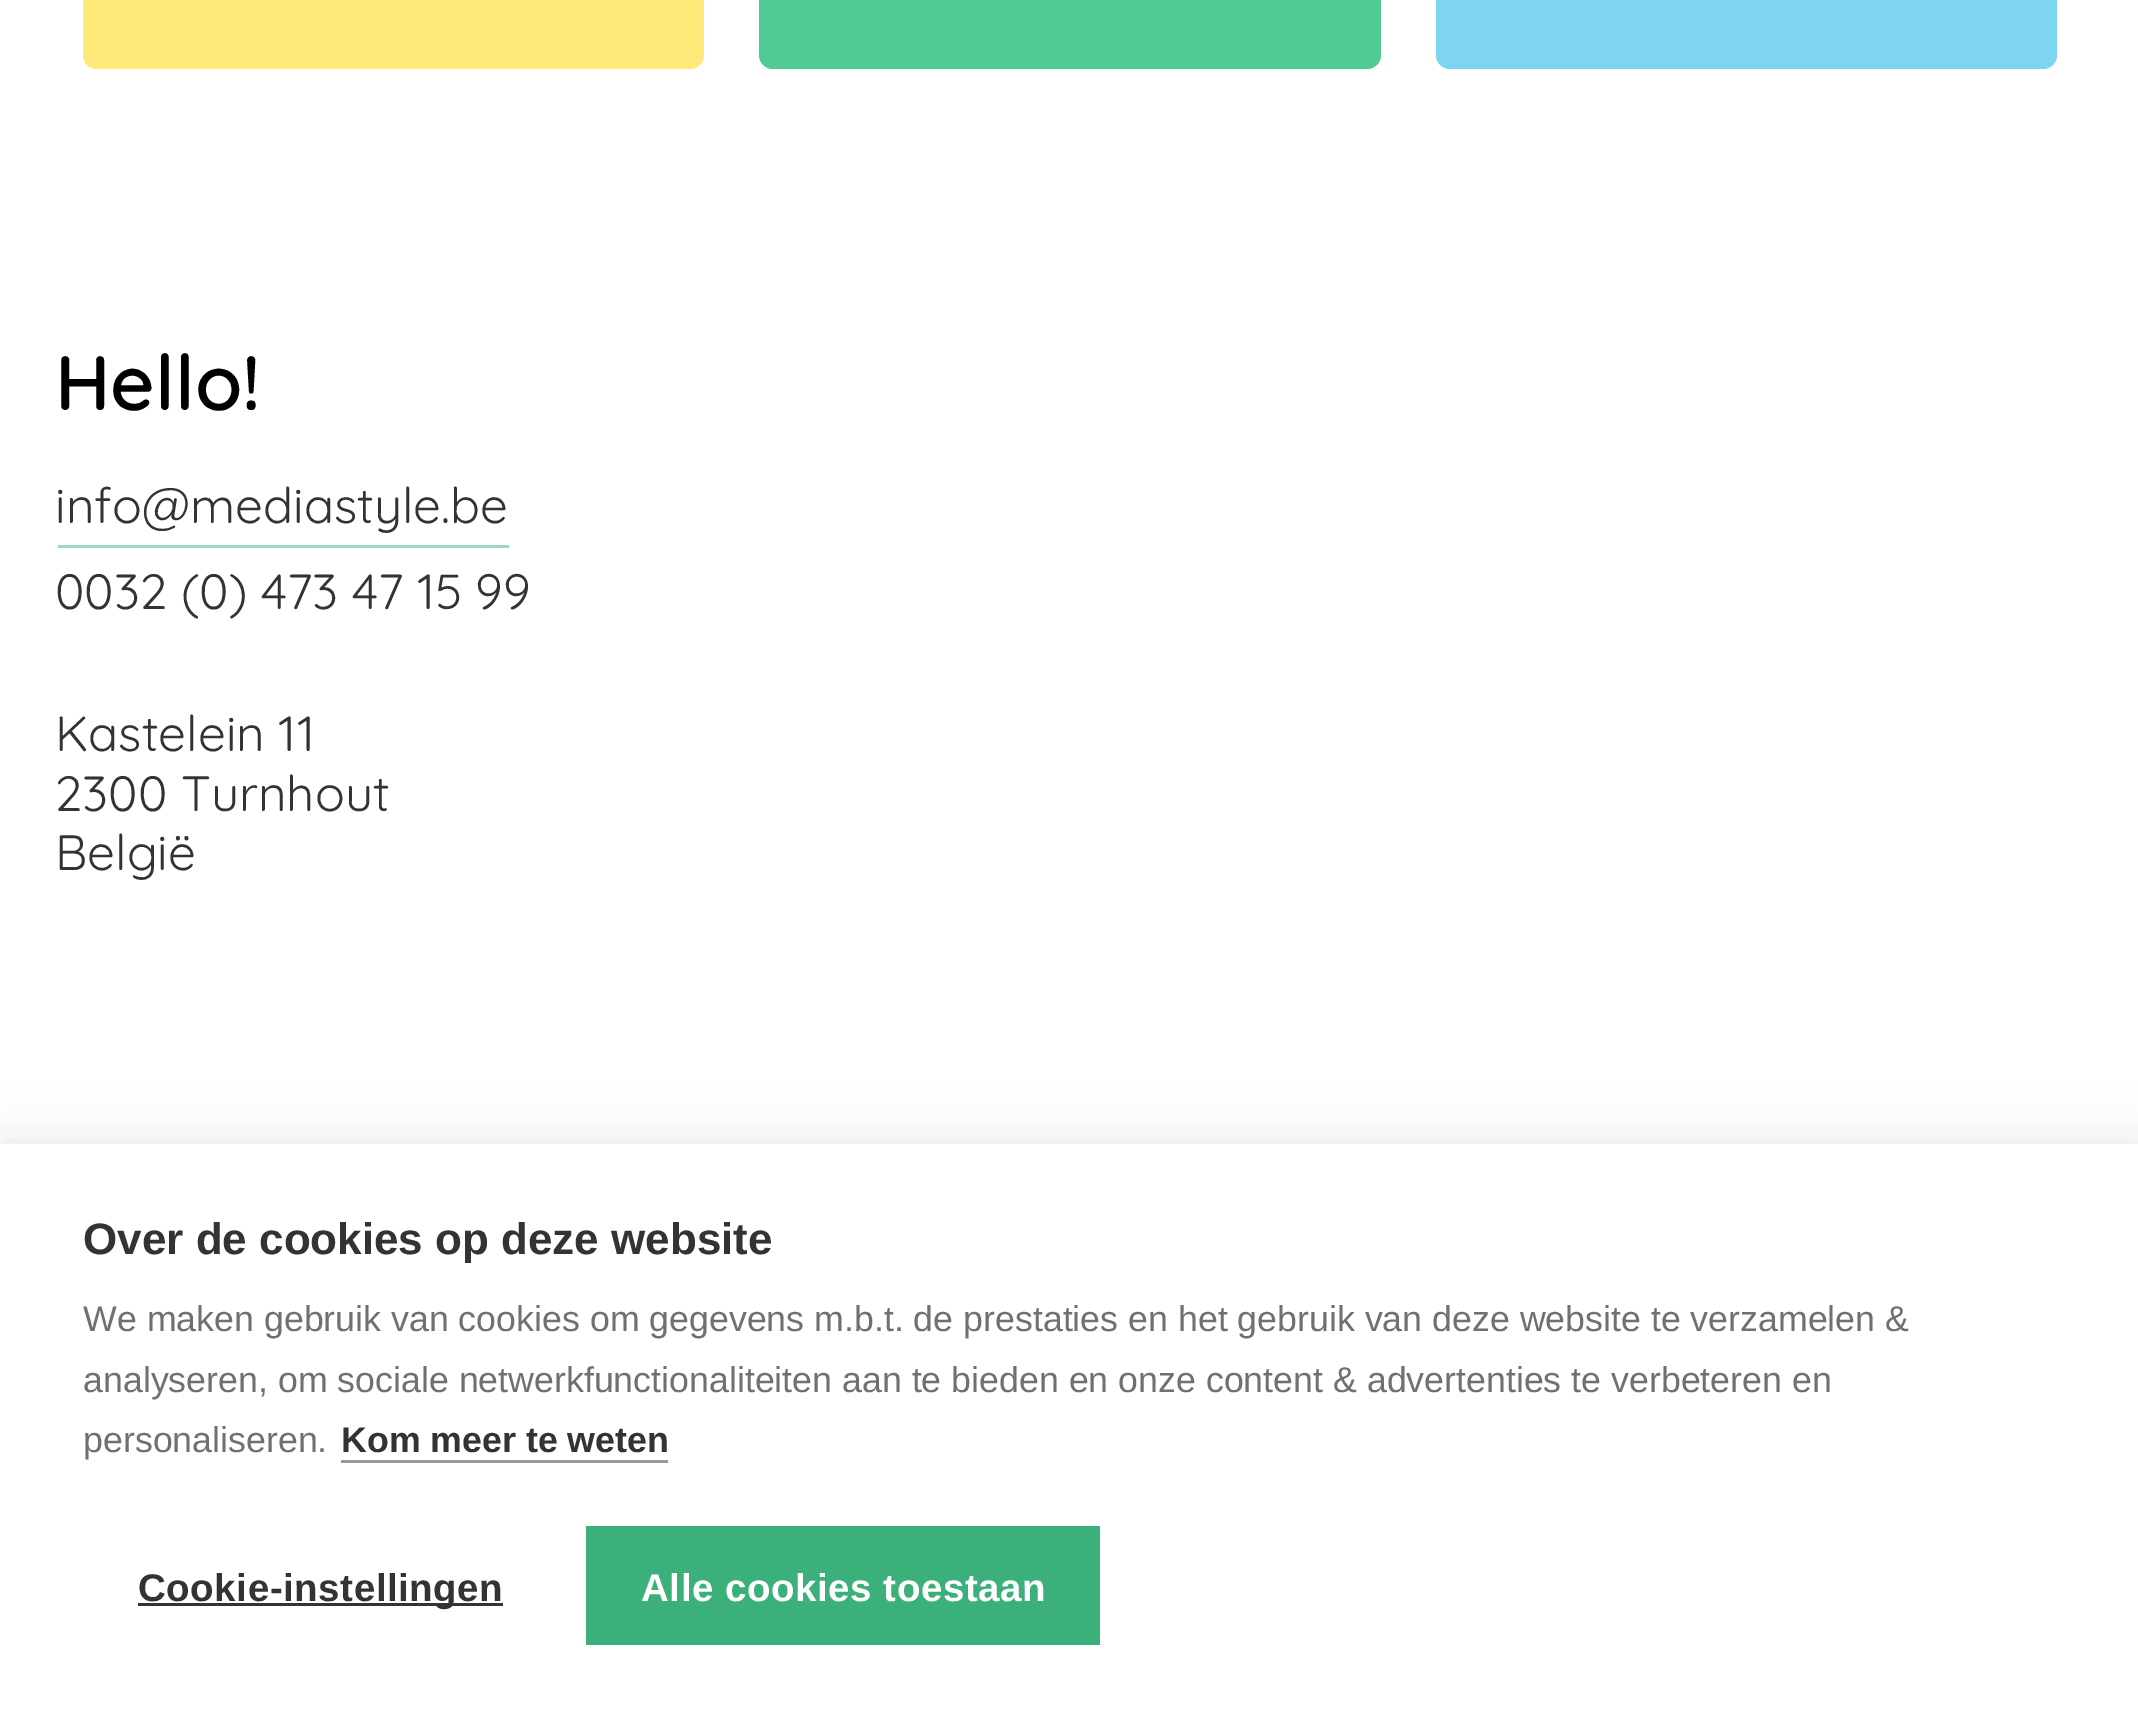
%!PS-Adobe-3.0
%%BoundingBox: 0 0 2138 1712
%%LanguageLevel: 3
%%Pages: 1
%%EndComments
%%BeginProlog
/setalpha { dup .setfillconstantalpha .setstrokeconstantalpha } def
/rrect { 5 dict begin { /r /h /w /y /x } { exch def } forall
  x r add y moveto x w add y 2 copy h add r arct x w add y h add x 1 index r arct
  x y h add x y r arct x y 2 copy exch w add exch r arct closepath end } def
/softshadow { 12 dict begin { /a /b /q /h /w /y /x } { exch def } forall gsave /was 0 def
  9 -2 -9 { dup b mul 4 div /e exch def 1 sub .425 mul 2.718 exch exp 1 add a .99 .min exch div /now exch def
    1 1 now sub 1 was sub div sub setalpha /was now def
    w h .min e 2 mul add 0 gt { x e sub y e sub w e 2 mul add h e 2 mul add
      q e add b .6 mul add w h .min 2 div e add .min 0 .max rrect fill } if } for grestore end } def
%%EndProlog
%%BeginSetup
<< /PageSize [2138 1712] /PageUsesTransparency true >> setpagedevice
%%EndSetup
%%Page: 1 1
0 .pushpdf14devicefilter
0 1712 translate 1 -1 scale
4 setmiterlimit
1 setgray
0 0 2138 1712 rectfill
1 0.914 0.475 setrgbcolor
83 -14 621 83 14 rrect fill
0.306 0.8 0.58 setrgbcolor
759 -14 622 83 14 rrect fill
0.494 0.835 0.941 setrgbcolor
1436 -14 621 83 14 rrect fill
0.616 0.847 0.741 setrgbcolor
58 545 451 3 rectfill
0 setgray
0 1144 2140 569 0 27.5 0.1 softshadow
1 setgray
0 1144 2138 568 rectfill
0.6 setgray
341 1460 327 3 rectfill
0.2 setgray
138 1603 365 3 rectfill
0.231 0.69 0.478 setrgbcolor
586 1526 514 119 rectfill
/Quicksand-SemiBold [77 0 0 -77 0 0] selectfont
0 setgray
55 410 moveto (Hello!) show
/Quicksand-Regular [49.5 0 0 -49.5 0 0] selectfont
0.2 setgray
55 523 moveto (info@mediastyle.be) show
55 609 moveto (0032 \(0\) 473 47 15 99) show
55 751 moveto (Kastelein 11) show
55 811 moveto (2300 Turnhout) show
55 870 moveto (België) show
/LiberationSans-Bold [44 0 0 -44 0 0] selectfont
83 1254 moveto (Over de cookies op deze website) show
/LiberationSans-Regular [35.75 0 0 -35.75 0 0] selectfont
0.439 setgray
83 1331 moveto (We maken gebruik van cookies om gegevens m.b.t. de prestaties en het gebruik van deze website te verzamelen &) show
83 1392 moveto (analyseren, om sociale netwerkfunctionaliteiten aan te bieden en onze content & advertenties te verbeteren en) show
83 1452 moveto (personaliseren.) show
/LiberationSans-Bold [35.75 0 0 -35.75 0 0] selectfont
0.2 setgray
341 1452 moveto (Kom meer te weten) show
/LiberationSans-Bold [38.5 0 0 -38.5 0 0] selectfont
138 1601 moveto 0.55 0 (Cookie-instellingen) ashow
1 setgray
641 1601 moveto 0.55 0 (Alle cookies toestaan) ashow
.poppdf14devicefilter showpage
%%EOF
